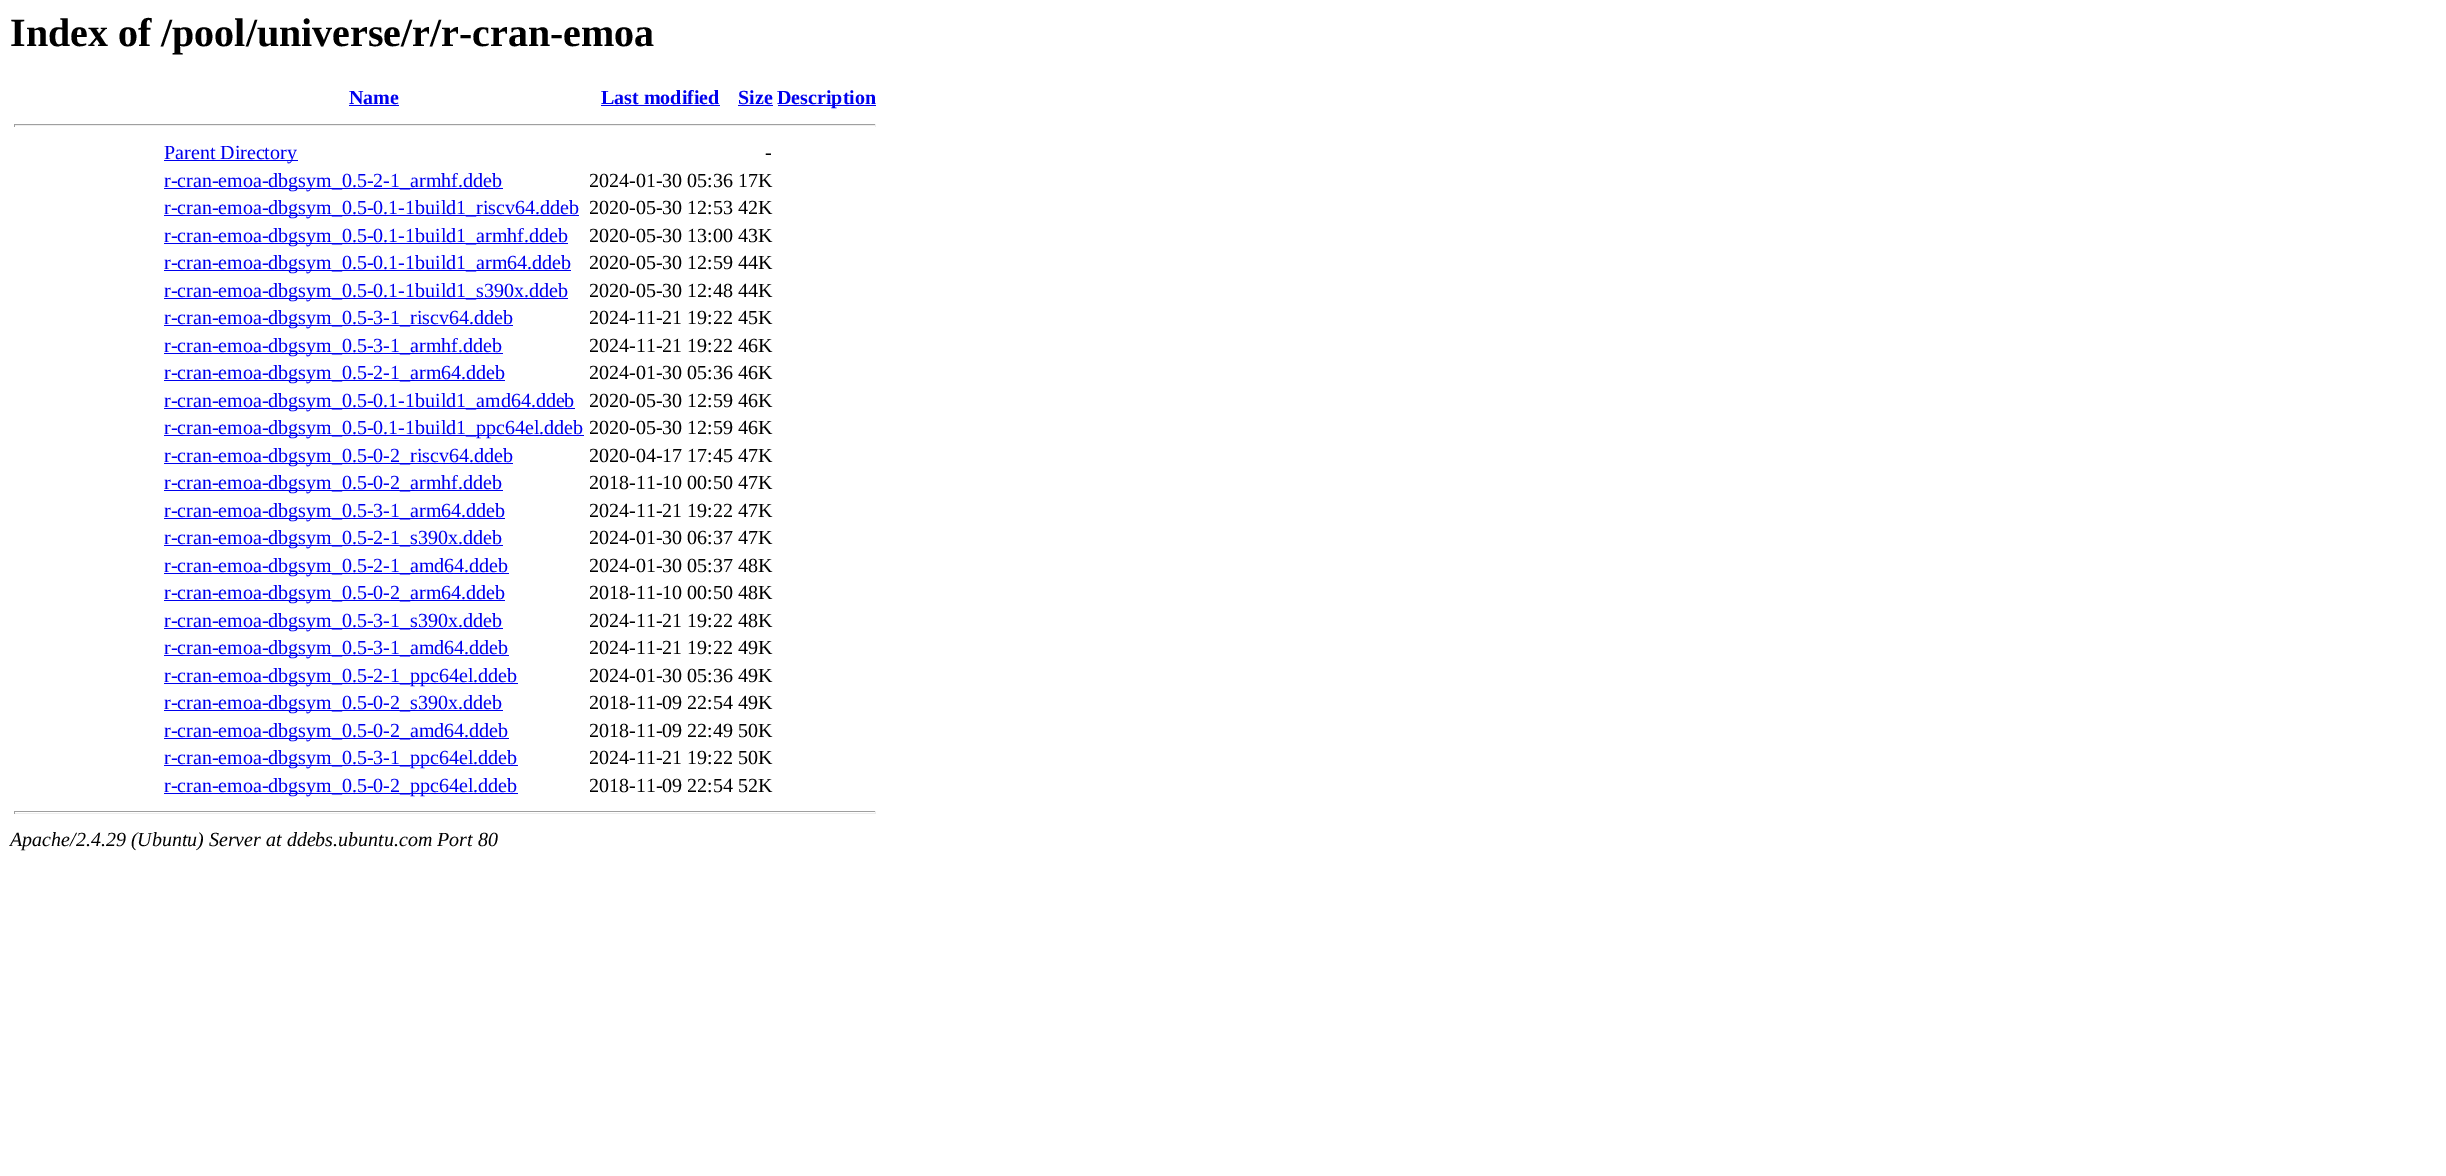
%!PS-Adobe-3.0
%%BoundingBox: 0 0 2446 1176
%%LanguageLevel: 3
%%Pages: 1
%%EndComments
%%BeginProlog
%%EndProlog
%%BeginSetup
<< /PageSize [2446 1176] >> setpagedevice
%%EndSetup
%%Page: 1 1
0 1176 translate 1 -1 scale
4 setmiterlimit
1 setgray
0 0 2446 1176 rectfill
0 0 0.933 setrgbcolor
349 105 50 1 rectfill
601 105 119 1 rectfill
738 105 35 1 rectfill
778 105 98 1 rectfill
0.624 setgray
14 124 862 1 rectfill
0.933 setgray
875 124 1 3 rectfill
14 125 862 1 rectfill
0.624 setgray
14 124 1 3 rectfill
0 0 0.933 setrgbcolor
164 160 134 1 rectfill
164 188 339 1 rectfill
164 215 415 1 rectfill
164 243 404 1 rectfill
164 270 407 1 rectfill
164 298 404 1 rectfill
164 325 349 1 rectfill
164 353 339 1 rectfill
164 380 341 1 rectfill
164 408 411 1 rectfill
164 435 420 1 rectfill
164 463 349 1 rectfill
164 490 339 1 rectfill
164 518 341 1 rectfill
164 545 339 1 rectfill
164 573 345 1 rectfill
164 600 341 1 rectfill
164 628 339 1 rectfill
164 655 345 1 rectfill
164 683 354 1 rectfill
164 710 339 1 rectfill
164 738 345 1 rectfill
164 765 354 1 rectfill
164 793 354 1 rectfill
0.624 setgray
14 811 862 1 rectfill
0.933 setgray
875 811 1 3 rectfill
14 813 862 1 rectfill
0.624 setgray
14 811 1 3 rectfill
/LiberationSerif-Bold [40 0 0 -40 0 0] selectfont
0 setgray
10 46 moveto (Index of /pool/universe/r/r-cran-emoa) show
/LiberationSerif-Bold [20 0 0 -20 0 0] selectfont
0 0 0.933 setrgbcolor
349 104 moveto (Name) show
601 104 moveto (Last modified) show
738 104 moveto (Size) show
777 104 moveto (Description) show
/LiberationSerif-Regular [20 0 0 -20 0 0] selectfont
164 159 moveto (Parent Directory) show
0 setgray
765 159 moveto (-) show
0 0 0.933 setrgbcolor
164 187 moveto (r-cran-emoa-dbgsym_0.5-2-1_armhf.ddeb) show
0 setgray
589 187 moveto (2024-01-30 05:36 17K) show
0 0 0.933 setrgbcolor
164 214 moveto (r-cran-emoa-dbgsym_0.5-0.1-1build1_riscv64.ddeb) show
0 setgray
589 214 moveto (2020-05-30 12:53 42K) show
0 0 0.933 setrgbcolor
164 242 moveto (r-cran-emoa-dbgsym_0.5-0.1-1build1_armhf.ddeb) show
0 setgray
589 242 moveto (2020-05-30 13:00 43K) show
0 0 0.933 setrgbcolor
164 269 moveto (r-cran-emoa-dbgsym_0.5-0.1-1build1_arm64.ddeb) show
0 setgray
589 269 moveto (2020-05-30 12:59 44K) show
0 0 0.933 setrgbcolor
164 297 moveto (r-cran-emoa-dbgsym_0.5-0.1-1build1_s390x.ddeb) show
0 setgray
589 297 moveto (2020-05-30 12:48 44K) show
0 0 0.933 setrgbcolor
164 324 moveto (r-cran-emoa-dbgsym_0.5-3-1_riscv64.ddeb) show
0 setgray
589 324 moveto (2024-11-21 19:22 45K) show
0 0 0.933 setrgbcolor
164 352 moveto (r-cran-emoa-dbgsym_0.5-3-1_armhf.ddeb) show
0 setgray
589 352 moveto (2024-11-21 19:22 46K) show
0 0 0.933 setrgbcolor
164 379 moveto (r-cran-emoa-dbgsym_0.5-2-1_arm64.ddeb) show
0 setgray
589 379 moveto (2024-01-30 05:36 46K) show
0 0 0.933 setrgbcolor
164 407 moveto (r-cran-emoa-dbgsym_0.5-0.1-1build1_amd64.ddeb) show
0 setgray
589 407 moveto (2020-05-30 12:59 46K) show
0 0 0.933 setrgbcolor
164 434 moveto (r-cran-emoa-dbgsym_0.5-0.1-1build1_ppc64el.ddeb) show
0 setgray
589 434 moveto (2020-05-30 12:59 46K) show
0 0 0.933 setrgbcolor
164 462 moveto (r-cran-emoa-dbgsym_0.5-0-2_riscv64.ddeb) show
0 setgray
589 462 moveto (2020-04-17 17:45 47K) show
0 0 0.933 setrgbcolor
164 489 moveto (r-cran-emoa-dbgsym_0.5-0-2_armhf.ddeb) show
0 setgray
589 489 moveto (2018-11-10 00:50 47K) show
0 0 0.933 setrgbcolor
164 517 moveto (r-cran-emoa-dbgsym_0.5-3-1_arm64.ddeb) show
0 setgray
589 517 moveto (2024-11-21 19:22 47K) show
0 0 0.933 setrgbcolor
164 544 moveto (r-cran-emoa-dbgsym_0.5-2-1_s390x.ddeb) show
0 setgray
589 544 moveto (2024-01-30 06:37 47K) show
0 0 0.933 setrgbcolor
164 572 moveto (r-cran-emoa-dbgsym_0.5-2-1_amd64.ddeb) show
0 setgray
589 572 moveto (2024-01-30 05:37 48K) show
0 0 0.933 setrgbcolor
164 599 moveto (r-cran-emoa-dbgsym_0.5-0-2_arm64.ddeb) show
0 setgray
589 599 moveto (2018-11-10 00:50 48K) show
0 0 0.933 setrgbcolor
164 627 moveto (r-cran-emoa-dbgsym_0.5-3-1_s390x.ddeb) show
0 setgray
589 627 moveto (2024-11-21 19:22 48K) show
0 0 0.933 setrgbcolor
164 654 moveto (r-cran-emoa-dbgsym_0.5-3-1_amd64.ddeb) show
0 setgray
589 654 moveto (2024-11-21 19:22 49K) show
0 0 0.933 setrgbcolor
164 682 moveto (r-cran-emoa-dbgsym_0.5-2-1_ppc64el.ddeb) show
0 setgray
589 682 moveto (2024-01-30 05:36 49K) show
0 0 0.933 setrgbcolor
164 709 moveto (r-cran-emoa-dbgsym_0.5-0-2_s390x.ddeb) show
0 setgray
589 709 moveto (2018-11-09 22:54 49K) show
0 0 0.933 setrgbcolor
164 737 moveto (r-cran-emoa-dbgsym_0.5-0-2_amd64.ddeb) show
0 setgray
589 737 moveto (2018-11-09 22:49 50K) show
0 0 0.933 setrgbcolor
164 764 moveto (r-cran-emoa-dbgsym_0.5-3-1_ppc64el.ddeb) show
0 setgray
589 764 moveto (2024-11-21 19:22 50K) show
0 0 0.933 setrgbcolor
164 792 moveto (r-cran-emoa-dbgsym_0.5-0-2_ppc64el.ddeb) show
0 setgray
589 792 moveto (2018-11-09 22:54 52K) show
/LiberationSerif-Italic [20 0 0 -20 0 0] selectfont
10 846 moveto (Apache/2.4.29 \(Ubuntu\) Server at ddebs.ubuntu.com Port 80) show
showpage
%%EOF
